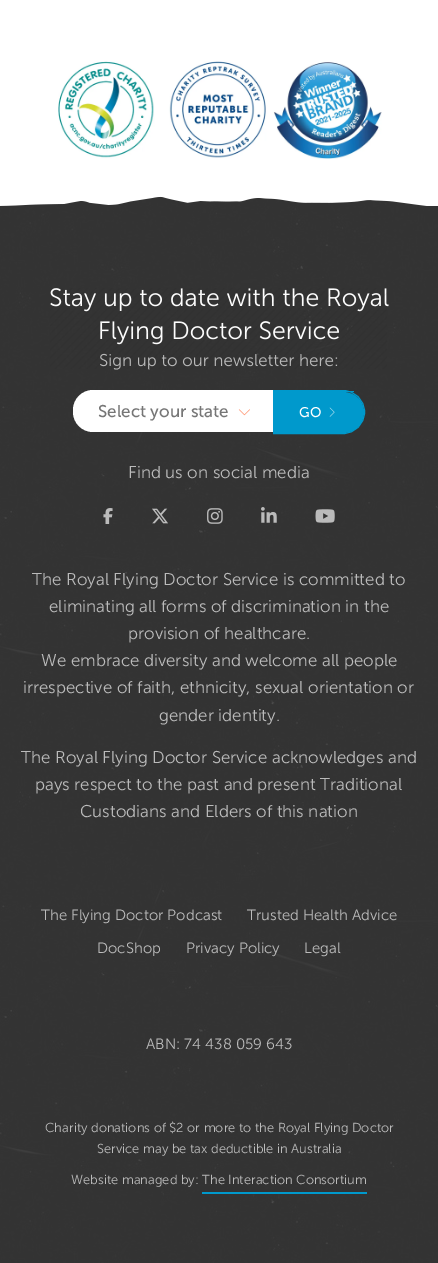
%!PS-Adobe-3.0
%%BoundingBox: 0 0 438 1263
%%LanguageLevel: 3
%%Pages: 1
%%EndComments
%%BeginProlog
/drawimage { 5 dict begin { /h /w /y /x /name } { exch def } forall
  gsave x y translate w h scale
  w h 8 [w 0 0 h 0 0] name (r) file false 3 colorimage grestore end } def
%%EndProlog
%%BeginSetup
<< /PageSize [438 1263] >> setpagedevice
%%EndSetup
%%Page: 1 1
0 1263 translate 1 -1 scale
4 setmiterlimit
1 setgray
0 0 438 1263 rectfill
(images/1.raw) 58 61 324 98 drawimage
(images/2.raw) 0 206 438 1057 drawimage
(images/3.raw) 0 196 427 10 drawimage
newpath 93 390 moveto 273 390 lineto 273 432 lineto 93 432 lineto 82 432 73 423 73 412 curveto 73 410 lineto 73 399 82 390 93 390 curveto closepath fill
(images/5.raw) 238 409 12 7 drawimage
0 0.6 0.8 setrgbcolor
newpath 274 392 moveto 343 392 lineto 355 392 364 401 364 412 curveto 364 424 355 433 343 433 curveto 274 433 lineto closepath fill
newpath 273.5 390.5 moveto 343 390.5 lineto 355 390.5 364.5 400 364.5 412 curveto 364.5 424 355 433.5 343 433.5 curveto 273.5 433.5 lineto closepath stroke
273 391 81 1 rectfill
(images/6.raw) 329 407 6 10 drawimage
(images/7.raw) 103 508 10 16 drawimage
(images/8.raw) 152 508 16 16 drawimage
(images/9.raw) 207 508 16 16 drawimage
(images/10.raw) 261 507 16 16 drawimage
(images/11.raw) 315 509 20 14 drawimage
202 1192 165 2 rectfill
/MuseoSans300-Light [25 0 0 -25 0 0] selectfont
1 setgray
49 306 moveto (Stay up to date with the Royal) show
98 339 moveto (Flying Doctor Service) show
/MuseoSans300-Light [17 0 0 -17 0 0] selectfont
0.733 setgray
99 366 moveto (Sign up to our newsletter here:) show
(images/4.raw) 50 288 337 81 drawimage
/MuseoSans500-Regular [17 0 0 -17 0 0] selectfont
0.463 setgray
98 417 moveto (Select your state) show
/MuseoSans500-Regular [14 0 0 -14 0 0] selectfont
1 setgray
299 417 moveto (GO) show
/MuseoSans300-Light [17 0 0 -17 0 0] selectfont
0.733 setgray
128 478 moveto (Find us on social media) show
32 585 moveto (The Royal Flying Doctor Service is committed to) show
49 612 moveto (eliminating all forms of discrimination in the) show
128 639 moveto (provision of healthcare.) show
41 666 moveto (We embrace diversity and welcome all people) show
23 693 moveto (irrespective of faith, ethnicity, sexual orientation or) show
159 721 moveto (gender identity.) show
21 763 moveto (The Royal Flying Doctor Service acknowledges and) show
35 790 moveto (pays respect to the past and present Traditional) show
80 817 moveto (Custodians and Elders of this nation) show
/MuseoSans300-Light [15 0 0 -15 0 0] selectfont
41 920 moveto (The Flying Doctor Podcast) show
247 920 moveto (Trusted Health Advice) show
97 953 moveto (DocShop) show
186 953 moveto (Privacy Policy) show
304 953 moveto (Legal) show
146 1049 moveto (ABN: 74 438 059 643) show
/MuseoSans300-Light [13 0 0 -13 0 0] selectfont
45 1132 moveto (Charity donations of $2 or more to the Royal Flying Doctor) show
97 1153 moveto (Service may be tax deductible in Australia) show
71 1184 moveto (Website managed by: The Interaction Consortium) show
showpage
%%EOF
